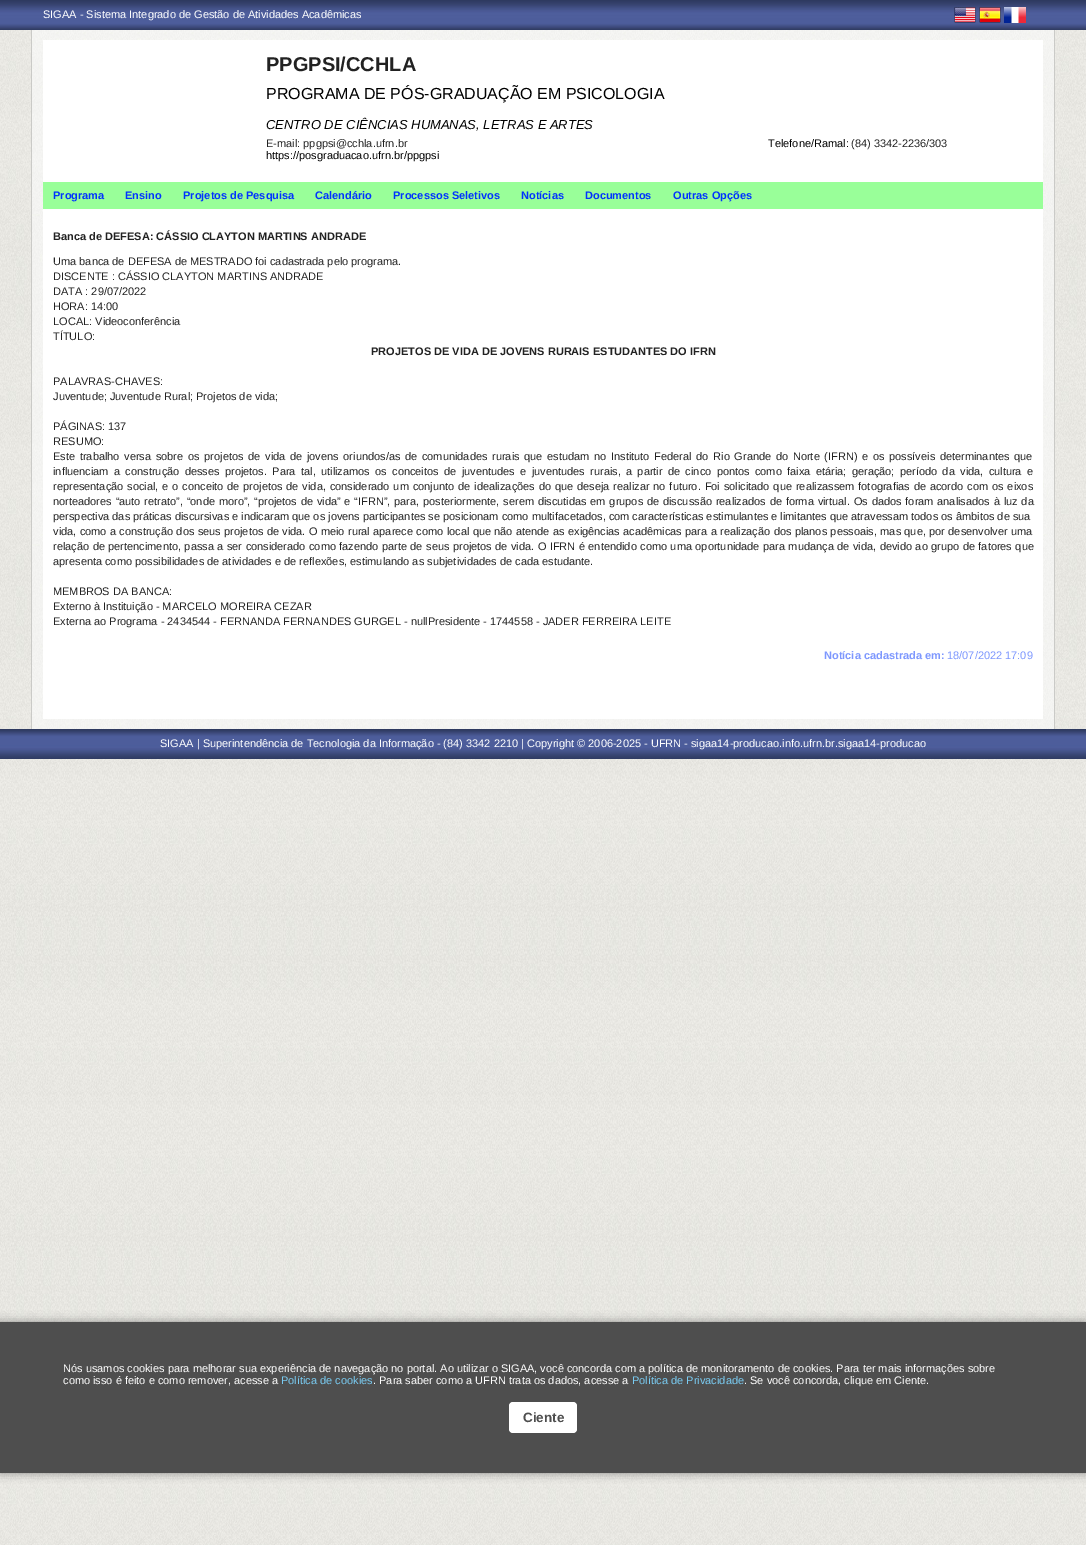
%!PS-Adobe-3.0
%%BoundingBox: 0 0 1086 1545
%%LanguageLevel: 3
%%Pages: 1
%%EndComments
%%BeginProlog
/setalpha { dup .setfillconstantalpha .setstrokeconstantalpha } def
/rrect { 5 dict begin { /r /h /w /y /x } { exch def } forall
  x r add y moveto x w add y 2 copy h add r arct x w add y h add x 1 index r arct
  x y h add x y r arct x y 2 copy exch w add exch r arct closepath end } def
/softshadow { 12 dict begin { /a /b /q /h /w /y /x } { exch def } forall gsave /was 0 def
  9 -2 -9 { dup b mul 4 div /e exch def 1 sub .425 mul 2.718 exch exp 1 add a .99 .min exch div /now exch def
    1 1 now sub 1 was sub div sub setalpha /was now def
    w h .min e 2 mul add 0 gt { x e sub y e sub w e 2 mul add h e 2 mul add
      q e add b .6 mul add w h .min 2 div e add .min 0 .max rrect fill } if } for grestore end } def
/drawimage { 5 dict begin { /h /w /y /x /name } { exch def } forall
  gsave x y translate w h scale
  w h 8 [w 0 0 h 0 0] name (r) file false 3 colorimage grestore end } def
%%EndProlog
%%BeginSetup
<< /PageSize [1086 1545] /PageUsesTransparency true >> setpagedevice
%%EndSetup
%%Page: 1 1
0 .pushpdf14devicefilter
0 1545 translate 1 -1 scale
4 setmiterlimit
1 setgray
0 0 1086 1545 rectfill
(images/1.raw) 0 30 1086 1515 drawimage
(images/2.raw) 0 0 1086 30 drawimage
(images/3.raw) 0 729 1086 30 drawimage
(images/4.raw) 954 7 22 16 drawimage
(images/5.raw) 979 7 22 16 drawimage
(images/6.raw) 1004 7 22 16 drawimage
(images/7.raw) 32 30 1022 699 drawimage
0.792 0.792 0.78 setrgbcolor
1054 30 1 699 rectfill
31 30 1 699 rectfill
1 setgray
43 40 1000 679 rectfill
0.6 1 0.6 setrgbcolor
43 182 1000 27 rectfill
0 setgray
0 1322 1086 151 0 5 0.4 softshadow
0.306 setgray
0 1322 1086 151 rectfill
1 setgray
509 1402 68 31 4 rrect fill
/LiberationSans-Regular [11 0 0 -11 0 0] selectfont
43 18 moveto (SIGAA - Sistema Integrado de Gestão de Atividades Acadêmicas) show
/LiberationSans-Bold [20 0 0 -20 0 0] selectfont
0.133 setgray
266 71 moveto (PPGPSI/CCHLA) show
/LiberationSans-Regular [16 0 0 -16 0 0] selectfont
0 setgray
266 99 moveto (PROGRAMA DE PÓS-GRADUAÇÃO EM PSICOLOGIA) show
/LiberationSans-Italic [13 0 0 -13 0 0] selectfont
266 129 moveto (CENTRO DE CIÊNCIAS HUMANAS, LETRAS E ARTES) show
/LiberationSans-Regular [11 0 0 -11 0 0] selectfont
0.133 setgray
266 147 moveto (E-mail: ppgpsi@cchla.ufrn.br) show
0 setgray
768 147 moveto (Telefone/Ramal:) show
0.133 setgray
851 147 moveto (\(84\) 3342-2236/303) show
0 setgray
266 159 moveto (https://posgraduacao.ufrn.br/ppgpsi) show
/LiberationSans-Bold [11 0 0 -11 0 0] selectfont
0 0.2 1 setrgbcolor
53 199 moveto (Programa) show
125 199 moveto (Ensino) show
183 199 moveto (Projetos de Pesquisa) show
315 199 moveto (Calendário) show
393 199 moveto (Processos Seletivos) show
521 199 moveto (Notícias) show
585 199 moveto (Documentos) show
673 199 moveto (Outras Opções) show
0.133 setgray
53 240 moveto (Banca de DEFESA: CÁSSIO CLAYTON MARTINS ANDRADE) show
/LiberationSans-Regular [11 0 0 -11 0 0] selectfont
53 265 moveto (Uma banca de DEFESA de MESTRADO foi cadastrada pelo programa.) show
53 280 moveto (DISCENTE : CÁSSIO CLAYTON MARTINS ANDRADE) show
53 295 moveto (DATA : 29/07/2022) show
53 310 moveto (HORA: 14:00) show
53 325 moveto (LOCAL: Videoconferência) show
53 340 moveto (TÍTULO:) show
/LiberationSans-Bold [11 0 0 -11 0 0] selectfont
371 355 moveto (PROJETOS DE VIDA DE JOVENS RURAIS ESTUDANTES DO IFRN) show
/LiberationSans-Regular [11 0 0 -11 0 0] selectfont
53 385 moveto (PALAVRAS-CHAVES:) show
53 400 moveto (Juventude; Juventude Rural; Projetos de vida;) show
53 430 moveto (PÁGINAS: 137) show
53 445 moveto (RESUMO:) show
53 460 moveto 1.65 0 32 (Este trabalho versa sobre os projetos de vida de jovens oriundos/as de comunidades rurais que estudam no Instituto Federal do Rio Grande do Norte \(IFRN\) e os possíveis determinantes que) widthshow
53 475 moveto 2.3 0 32 (influenciam a construção desses projetos. Para tal, utilizamos os conceitos de juventudes e juventudes rurais, a partir de cinco pontos como faixa etária; geração; período da vida, cultura e) widthshow
53 490 moveto 0.85 0 32 (representação social, e o conceito de projetos de vida, considerado um conjunto de idealizações do que deseja realizar no futuro. Foi solicitado que realizassem fotografias de acordo com os eixos) widthshow
53 505 moveto 0.75 0 32 (norteadores “auto retrato”, “onde moro”, “projetos de vida” e “IFRN”, para, posteriormente, serem discutidas em grupos de discussão realizados de forma virtual. Os dados foram analisados à luz da) widthshow
53 520 moveto (perspectiva das práticas discursivas e indicaram que os jovens participantes se posicionam como multifacetados, com características estimulantes e limitantes que atravessam todos os âmbitos de sua) show
53 535 moveto 0.3 0 32 (vida, como a construção dos seus projetos de vida. O meio rural aparece como local que não atende as exigências acadêmicas para a realização dos planos pessoais, mas que, por desenvolver uma) widthshow
53 550 moveto 0.4 0 32 (relação de pertencimento, passa a ser considerado como fazendo parte de seus projetos de vida. O IFRN é entendido como uma oportunidade para mudança de vida, devido ao grupo de fatores que) widthshow
53 565 moveto (apresenta como possibilidades de atividades e de reflexões, estimulando as subjetividades de cada estudante.) show
53 595 moveto (MEMBROS DA BANCA:) show
53 610 moveto (Externo à Instituição - MARCELO MOREIRA CEZAR) show
53 625 moveto (Externa ao Programa - 2434544 - FERNANDA FERNANDES GURGEL - nullPresidente - 1744558 - JADER FERREIRA LEITE) show
/LiberationSans-Bold [11 0 0 -11 0 0] selectfont
0.49 0.592 0.996 setrgbcolor
824 659 moveto (Notícia cadastrada em:) show
/LiberationSans-Regular [11 0 0 -11 0 0] selectfont
947 659 moveto (18/07/2022 17:09) show
1 setgray
160 747 moveto (SIGAA | Superintendência de Tecnologia da Informação - \(84\) 3342 2210 | Copyright © 2006-2025 - UFRN - sigaa14-producao.info.ufrn.br.sigaa14-producao) show
63 1372 moveto (Nós usamos cookies para melhorar sua experiência de navegação no portal. Ao utilizar o SIGAA, você concorda com a política de monitoramento de cookies. Para ter mais informações sobre) show
63 1384 moveto (como isso é feito e como remover, acesse a) show
0.475 0.796 0.949 setrgbcolor
281 1384 moveto (Política de cookies) show
1 setgray
373 1384 moveto (. Para saber como a UFRN trata os dados, acesse a) show
0.475 0.796 0.949 setrgbcolor
632 1384 moveto (Política de Privacidade) show
1 setgray
744 1384 moveto (. Se você concorda, clique em Ciente.) show
/LiberationSans-Bold [13.5 0 0 -13.5 0 0] selectfont
0.306 setgray
523 1422 moveto (Ciente) show
.poppdf14devicefilter showpage
%%EOF
